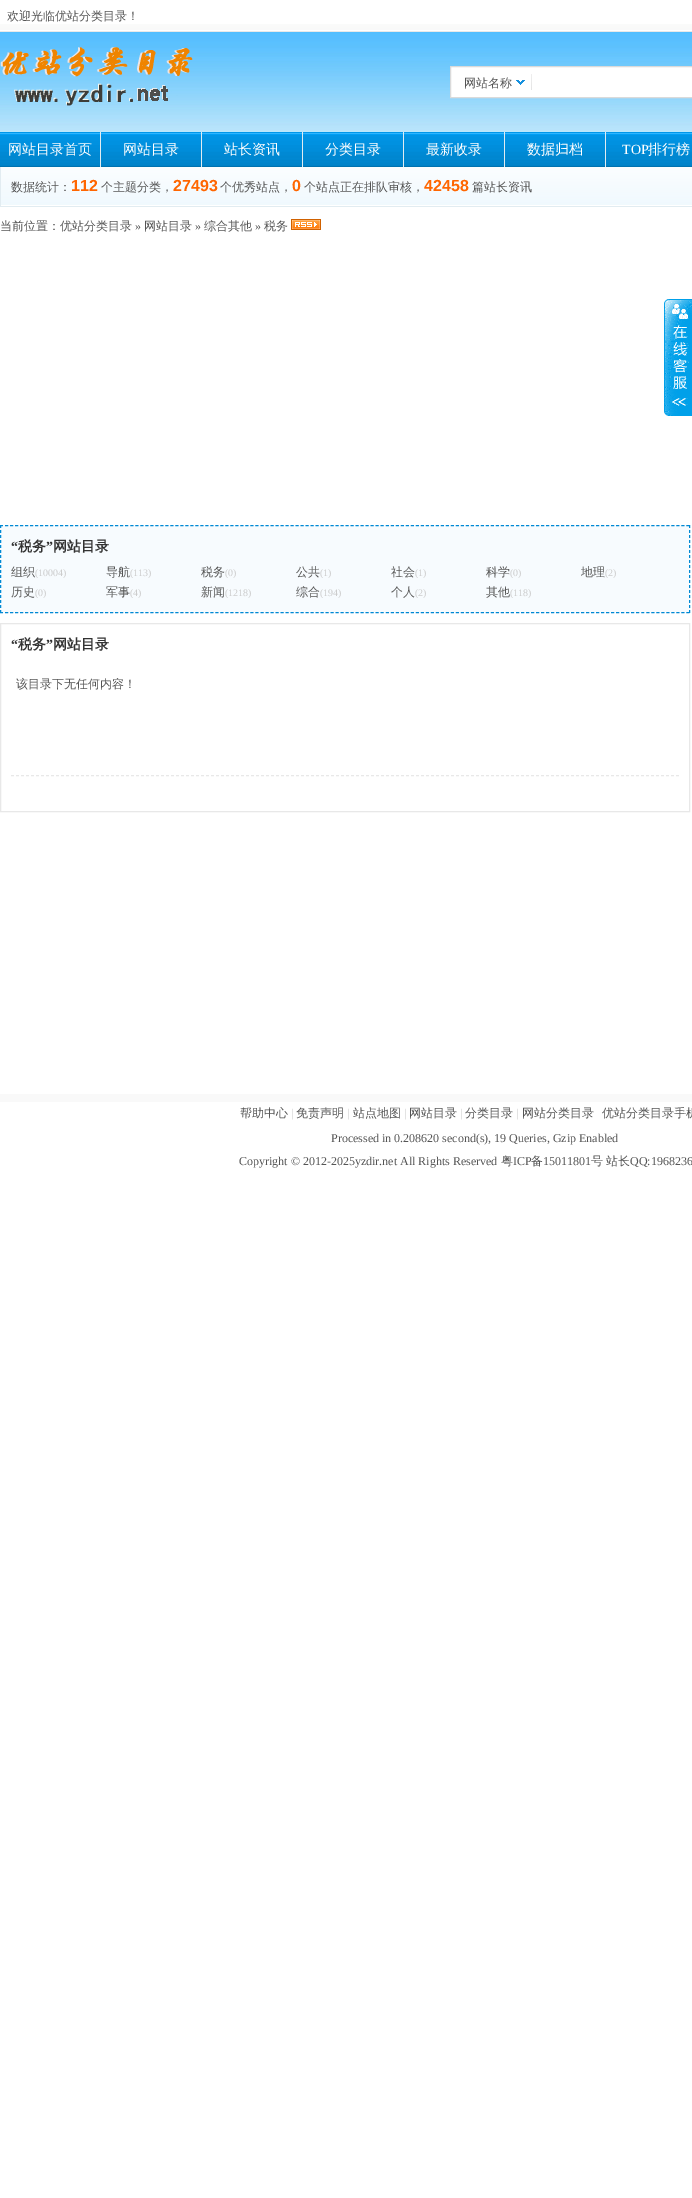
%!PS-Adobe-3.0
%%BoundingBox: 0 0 692 2198
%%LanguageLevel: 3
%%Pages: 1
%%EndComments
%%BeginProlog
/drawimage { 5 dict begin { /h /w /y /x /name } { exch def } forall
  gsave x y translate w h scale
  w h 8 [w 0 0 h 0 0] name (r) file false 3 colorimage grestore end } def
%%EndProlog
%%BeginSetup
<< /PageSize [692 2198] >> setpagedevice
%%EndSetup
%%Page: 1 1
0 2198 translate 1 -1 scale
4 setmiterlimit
1 setgray
0 0 692 2198 rectfill
(images/1.raw) 0 24 692 108 drawimage
(images/2.raw) 0 47 193 59 drawimage
newpath 450.5 66.5 moveto 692.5 66.5 lineto 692.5 97.5 lineto 450.5 97.5 lineto closepath gsave fill grestore
0.855 setgray
stroke
(images/3.raw) 516 74 16 16 drawimage
(images/4.raw) 0 132 692 35 drawimage
0.886 0.925 0.945 setrgbcolor
100 132 1 35 rectfill
201 132 1 35 rectfill
302 132 1 35 rectfill
403 132 1 35 rectfill
504 132 1 35 rectfill
605 132 1 35 rectfill
(images/5.raw) 1 167 691 40 drawimage
0 167 1 40 rectfill
(images/6.raw) 291 219 30 11 drawimage
(images/7.raw) 664 299 28 117 drawimage
0.969 0.984 0.996 setrgbcolor
0 525 690 88 rectfill
0 0.537 0.831 setrgbcolor
[3 2.01] 0 setdash
newpath 0 525.5 moveto 690 525.5 lineto stroke
[3 2] 0 setdash
newpath 689.5 525 moveto 689.5 613 lineto stroke
[3 2.01] 0 setdash
newpath 0 612.5 moveto 690 612.5 lineto stroke
[3 2] 0 setdash
newpath 0.5 525 moveto 0.5 613 lineto stroke
0.91 setgray
[] 0 setdash
0.5 623.5 689 188 rectstroke
[3 2] 0 setdash
newpath 11 775.5 moveto 679 775.5 lineto stroke
0.976 setgray
0 1094 692 8 rectfill
/WenQuanYiZenHei-Medium [12 0 0 -12 0 0] selectfont
0.333 setgray
7 20 moveto (欢迎光临优站分类目录！) show
464 87 moveto (网站名称) show
/WenQuanYiZenHei-Medium [14 0 0 -14 0 0] selectfont
1 setgray
8 154 moveto (网站目录首页) show
123 154 moveto (网站目录) show
224 154 moveto (站长资讯) show
325 154 moveto (分类目录) show
426 154 moveto (最新收录) show
527 154 moveto (数据归档) show
/LiberationSerif-Regular [14 0 0 -14 0 0] selectfont
622 154 moveto (TOP) show
/WenQuanYiZenHei-Medium [14 0 0 -14 0 0] selectfont
648 154 moveto (排行榜) show
/WenQuanYiZenHei-Medium [12 0 0 -12 0 0] selectfont
0.333 setgray
11 191 moveto (数据统计：) show
/LiberationSans-Bold [16 0 0 -16 0 0] selectfont
1 0.4 0 setrgbcolor
71 191 moveto (112) show
/WenQuanYiZenHei-Medium [12 0 0 -12 0 0] selectfont
0.333 setgray
101 191 moveto (个主题分类，) show
/LiberationSans-Bold [16 0 0 -16 0 0] selectfont
1 0.4 0 setrgbcolor
173 191 moveto (27493) show
/WenQuanYiZenHei-Medium [12 0 0 -12 0 0] selectfont
0.333 setgray
220 191 moveto (个优秀站点，) show
/LiberationSans-Bold [16 0 0 -16 0 0] selectfont
1 0.4 0 setrgbcolor
292 191 moveto (0) show
/WenQuanYiZenHei-Medium [12 0 0 -12 0 0] selectfont
0.333 setgray
304 191 moveto (个站点正在排队审核，) show
/LiberationSans-Bold [16 0 0 -16 0 0] selectfont
1 0.4 0 setrgbcolor
424 191 moveto (42458) show
/WenQuanYiZenHei-Medium [12 0 0 -12 0 0] selectfont
0.333 setgray
472 191 moveto (篇站长资讯) show
0 230 moveto (当前位置：优站分类目录) show
/LiberationSerif-Regular [12 0 0 -12 0 0] selectfont
135 230 moveto (») show
/WenQuanYiZenHei-Medium [12 0 0 -12 0 0] selectfont
144 230 moveto (网站目录) show
/LiberationSerif-Regular [12 0 0 -12 0 0] selectfont
195 230 moveto (») show
/WenQuanYiZenHei-Medium [12 0 0 -12 0 0] selectfont
204 230 moveto (综合其他) show
/LiberationSerif-Regular [12 0 0 -12 0 0] selectfont
255 230 moveto (») show
/WenQuanYiZenHei-Medium [12 0 0 -12 0 0] selectfont
264 230 moveto (税务) show
/LiberationSerif-Bold [14 0 0 -14 0 0] selectfont
0.2 setgray
11 551 moveto (“) show
/WenQuanYiZenHei-Bold [14 0 0 -14 0 0] selectfont
18 551 moveto (税务) show
/LiberationSerif-Bold [14 0 0 -14 0 0] selectfont
46 551 moveto (”) show
/WenQuanYiZenHei-Bold [14 0 0 -14 0 0] selectfont
53 551 moveto (网站目录) show
/WenQuanYiZenHei-Medium [12 0 0 -12 0 0] selectfont
0.333 setgray
11 576 moveto (组织) show
/LiberationSerif-Regular [10 0 0 -10 0 0] selectfont
0.8 setgray
35 576 moveto (\(10004\)) show
/WenQuanYiZenHei-Medium [12 0 0 -12 0 0] selectfont
0.333 setgray
106 576 moveto (导航) show
/LiberationSerif-Regular [10 0 0 -10 0 0] selectfont
0.8 setgray
130 576 moveto (\(113\)) show
/WenQuanYiZenHei-Medium [12 0 0 -12 0 0] selectfont
0.333 setgray
201 576 moveto (税务) show
/LiberationSerif-Regular [10 0 0 -10 0 0] selectfont
0.8 setgray
225 576 moveto (\(0\)) show
/WenQuanYiZenHei-Medium [12 0 0 -12 0 0] selectfont
0.333 setgray
296 576 moveto (公共) show
/LiberationSerif-Regular [10 0 0 -10 0 0] selectfont
0.8 setgray
320 576 moveto (\(1\)) show
/WenQuanYiZenHei-Medium [12 0 0 -12 0 0] selectfont
0.333 setgray
391 576 moveto (社会) show
/LiberationSerif-Regular [10 0 0 -10 0 0] selectfont
0.8 setgray
415 576 moveto (\(1\)) show
/WenQuanYiZenHei-Medium [12 0 0 -12 0 0] selectfont
0.333 setgray
486 576 moveto (科学) show
/LiberationSerif-Regular [10 0 0 -10 0 0] selectfont
0.8 setgray
510 576 moveto (\(0\)) show
/WenQuanYiZenHei-Medium [12 0 0 -12 0 0] selectfont
0.333 setgray
581 576 moveto (地理) show
/LiberationSerif-Regular [10 0 0 -10 0 0] selectfont
0.8 setgray
605 576 moveto (\(2\)) show
/WenQuanYiZenHei-Medium [12 0 0 -12 0 0] selectfont
0.333 setgray
11 596 moveto (历史) show
/LiberationSerif-Regular [10 0 0 -10 0 0] selectfont
0.8 setgray
35 596 moveto (\(0\)) show
/WenQuanYiZenHei-Medium [12 0 0 -12 0 0] selectfont
0.333 setgray
106 596 moveto (军事) show
/LiberationSerif-Regular [10 0 0 -10 0 0] selectfont
0.8 setgray
130 596 moveto (\(4\)) show
/WenQuanYiZenHei-Medium [12 0 0 -12 0 0] selectfont
0.333 setgray
201 596 moveto (新闻) show
/LiberationSerif-Regular [10 0 0 -10 0 0] selectfont
0.8 setgray
225 596 moveto (\(1218\)) show
/WenQuanYiZenHei-Medium [12 0 0 -12 0 0] selectfont
0.333 setgray
296 596 moveto (综合) show
/LiberationSerif-Regular [10 0 0 -10 0 0] selectfont
0.8 setgray
320 596 moveto (\(194\)) show
/WenQuanYiZenHei-Medium [12 0 0 -12 0 0] selectfont
0.333 setgray
391 596 moveto (个人) show
/LiberationSerif-Regular [10 0 0 -10 0 0] selectfont
0.8 setgray
415 596 moveto (\(2\)) show
/WenQuanYiZenHei-Medium [12 0 0 -12 0 0] selectfont
0.333 setgray
486 596 moveto (其他) show
/LiberationSerif-Regular [10 0 0 -10 0 0] selectfont
0.8 setgray
510 596 moveto (\(118\)) show
/LiberationSerif-Bold [14 0 0 -14 0 0] selectfont
0.2 setgray
11 649 moveto (“) show
/WenQuanYiZenHei-Bold [14 0 0 -14 0 0] selectfont
18 649 moveto (税务) show
/LiberationSerif-Bold [14 0 0 -14 0 0] selectfont
46 649 moveto (”) show
/WenQuanYiZenHei-Bold [14 0 0 -14 0 0] selectfont
53 649 moveto (网站目录) show
/WenQuanYiZenHei-Medium [12 0 0 -12 0 0] selectfont
0.333 setgray
16 688 moveto (该目录下无任何内容！) show
240 1117 moveto (帮助中心) show
/LiberationSerif-Regular [12 0 0 -12 0 0] selectfont
0.8 setgray
291 1117 moveto (|) show
/WenQuanYiZenHei-Medium [12 0 0 -12 0 0] selectfont
0.333 setgray
296 1117 moveto (免责声明) show
/LiberationSerif-Regular [12 0 0 -12 0 0] selectfont
0.8 setgray
347 1117 moveto (|) show
/WenQuanYiZenHei-Medium [12 0 0 -12 0 0] selectfont
0.333 setgray
353 1117 moveto (站点地图) show
/LiberationSerif-Regular [12 0 0 -12 0 0] selectfont
0.8 setgray
404 1117 moveto (|) show
/WenQuanYiZenHei-Medium [12 0 0 -12 0 0] selectfont
0.333 setgray
409 1117 moveto (网站目录) show
/LiberationSerif-Regular [12 0 0 -12 0 0] selectfont
0.8 setgray
460 1117 moveto (|) show
/WenQuanYiZenHei-Medium [12 0 0 -12 0 0] selectfont
0.333 setgray
465 1117 moveto (分类目录) show
/LiberationSerif-Regular [12 0 0 -12 0 0] selectfont
0.8 setgray
516 1117 moveto (|) show
/WenQuanYiZenHei-Medium [12 0 0 -12 0 0] selectfont
0.333 setgray
522 1117 moveto (网站分类目录) show
602 1117 moveto (优站分类目录手机) show
/LiberationSerif-Regular [12 0 0 -12 0 0] selectfont
331 1142 moveto (Processed in 0.208620 second\(s\), 19 Queries, Gzip Enabled) show
239 1165 moveto (Copyright © 2012-2025yzdir.net All Rights Reserved) show
/WenQuanYiZenHei-Medium [12 0 0 -12 0 0] selectfont
501 1165 moveto (粤) show
/LiberationSerif-Regular [12 0 0 -12 0 0] selectfont
513 1165 moveto (ICP) show
/WenQuanYiZenHei-Medium [12 0 0 -12 0 0] selectfont
531 1165 moveto (备) show
/LiberationSerif-Regular [12 0 0 -12 0 0] selectfont
543 1165 moveto (15011801) show
/WenQuanYiZenHei-Medium [12 0 0 -12 0 0] selectfont
591 1165 moveto (号) show
606 1165 moveto (站长) show
/LiberationSerif-Regular [12 0 0 -12 0 0] selectfont
630 1165 moveto (QQ:1968236) show
showpage
%%EOF
